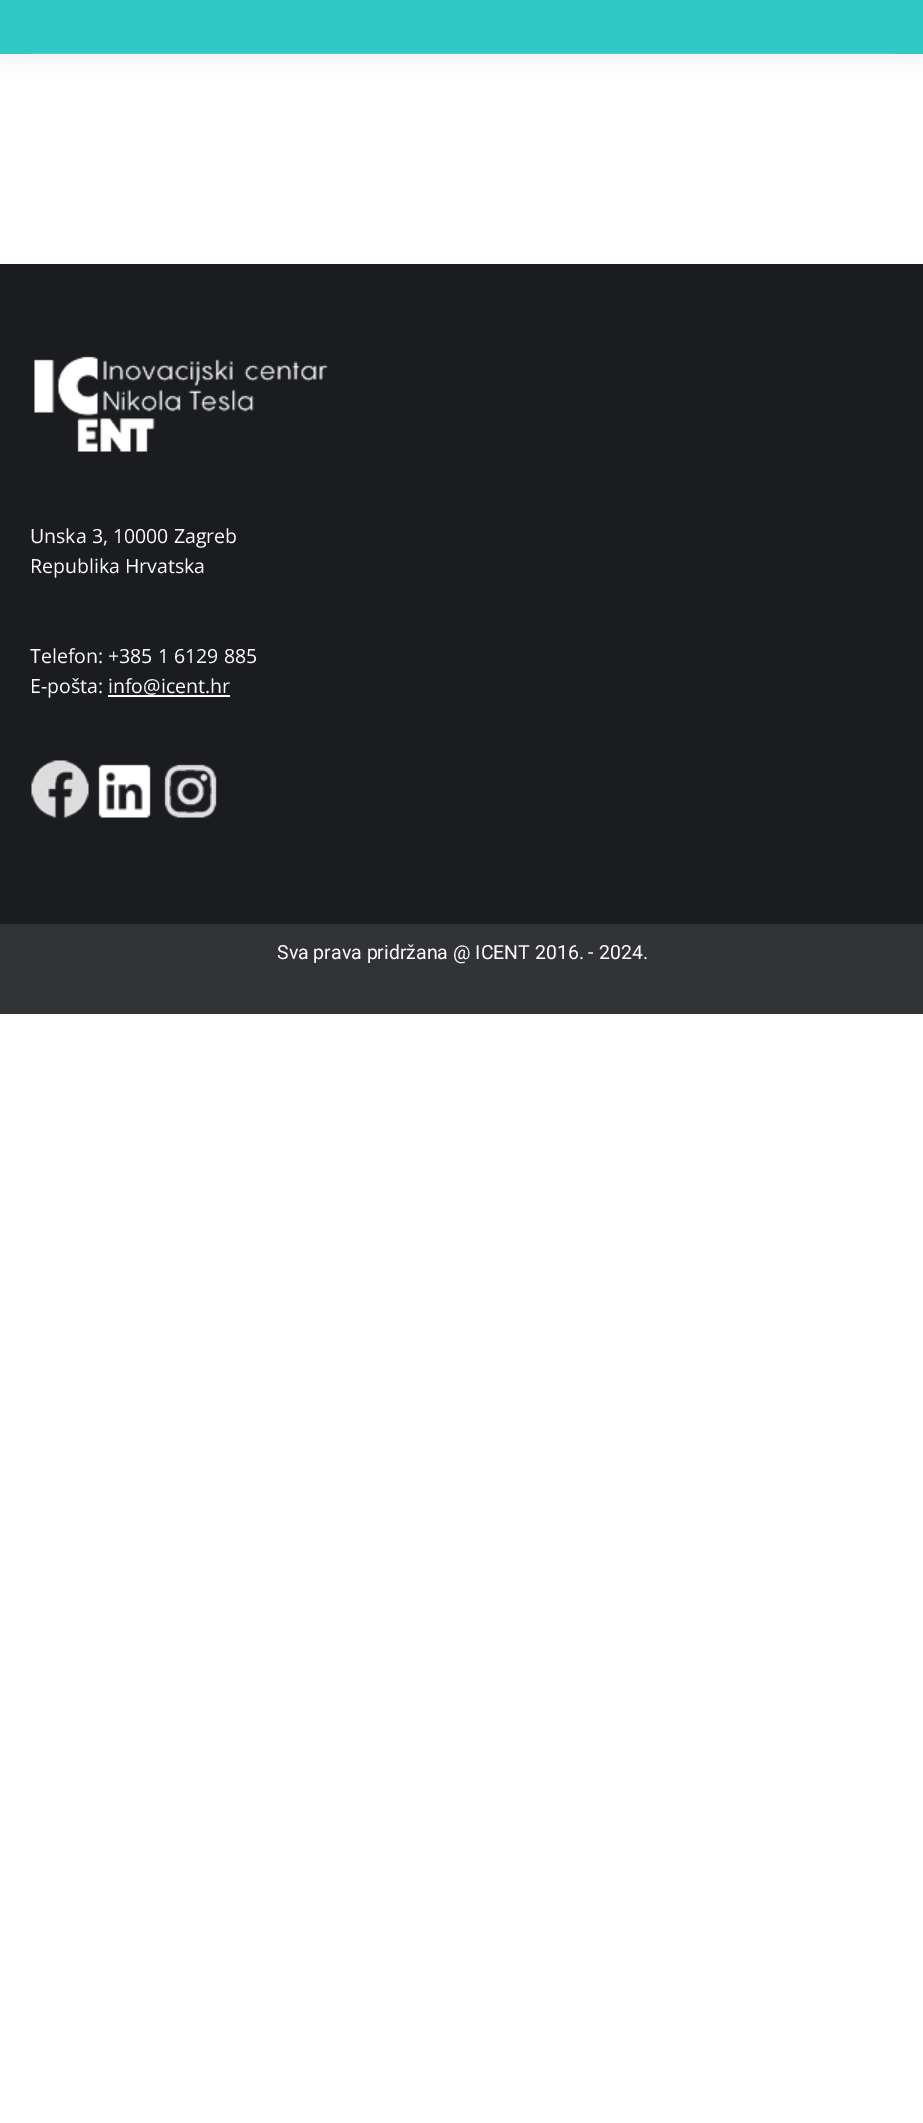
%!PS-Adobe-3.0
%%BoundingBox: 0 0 923 2123
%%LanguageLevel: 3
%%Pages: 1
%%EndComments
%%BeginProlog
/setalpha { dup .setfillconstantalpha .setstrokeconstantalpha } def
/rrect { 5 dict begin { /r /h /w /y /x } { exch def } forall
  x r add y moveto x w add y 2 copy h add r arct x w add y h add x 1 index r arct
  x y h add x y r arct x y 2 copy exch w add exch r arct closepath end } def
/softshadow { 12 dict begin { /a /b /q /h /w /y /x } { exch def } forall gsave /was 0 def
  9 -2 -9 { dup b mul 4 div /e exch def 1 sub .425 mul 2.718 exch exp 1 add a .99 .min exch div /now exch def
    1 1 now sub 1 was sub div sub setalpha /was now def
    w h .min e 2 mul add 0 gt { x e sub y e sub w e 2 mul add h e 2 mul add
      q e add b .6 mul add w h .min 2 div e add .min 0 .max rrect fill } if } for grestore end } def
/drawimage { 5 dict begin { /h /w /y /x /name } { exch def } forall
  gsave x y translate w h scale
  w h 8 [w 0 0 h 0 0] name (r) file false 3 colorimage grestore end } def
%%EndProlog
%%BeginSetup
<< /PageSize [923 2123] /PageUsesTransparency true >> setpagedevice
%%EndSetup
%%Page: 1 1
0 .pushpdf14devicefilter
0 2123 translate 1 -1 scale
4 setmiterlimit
1 setgray
0 0 923 2123 rectfill
0 setgray
-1 -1 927 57 0 11 0.07 softshadow
0.18 0.788 0.769 setrgbcolor
0 0 923 54 rectfill
0.12 setalpha
1 setgray
30 53 864 1 rectfill
1 setalpha
0.102 0.11 0.125 setrgbcolor
0 264 923 660 rectfill
(images/1.raw) 34 356 294 96 drawimage
1 setgray
108 695 122 2 rectfill
(images/2.raw) 31 760 58 58 drawimage
(images/3.raw) 98 764 53 54 drawimage
(images/4.raw) 164 764 53 54 drawimage
0.192 0.2 0.212 setrgbcolor
0 924 923 90 rectfill
/OpenSans-Regular [19.5 0 0 -19.5 0 0] selectfont
1 setgray
30 543 moveto (Unska 3, 10000 Zagreb) show
30 573 moveto (Republika Hrvatska) show
30 663 moveto (Telefon: +385 1 6129 885) show
30 693 moveto (E-pošta: info@icent.hr) show
/Roboto-Regular [19.5 0 0 -19.5 0 0] selectfont
277 959 moveto (Sva prava pridržana @ ICENT 2016. - 2024.) show
.poppdf14devicefilter showpage
%%EOF
